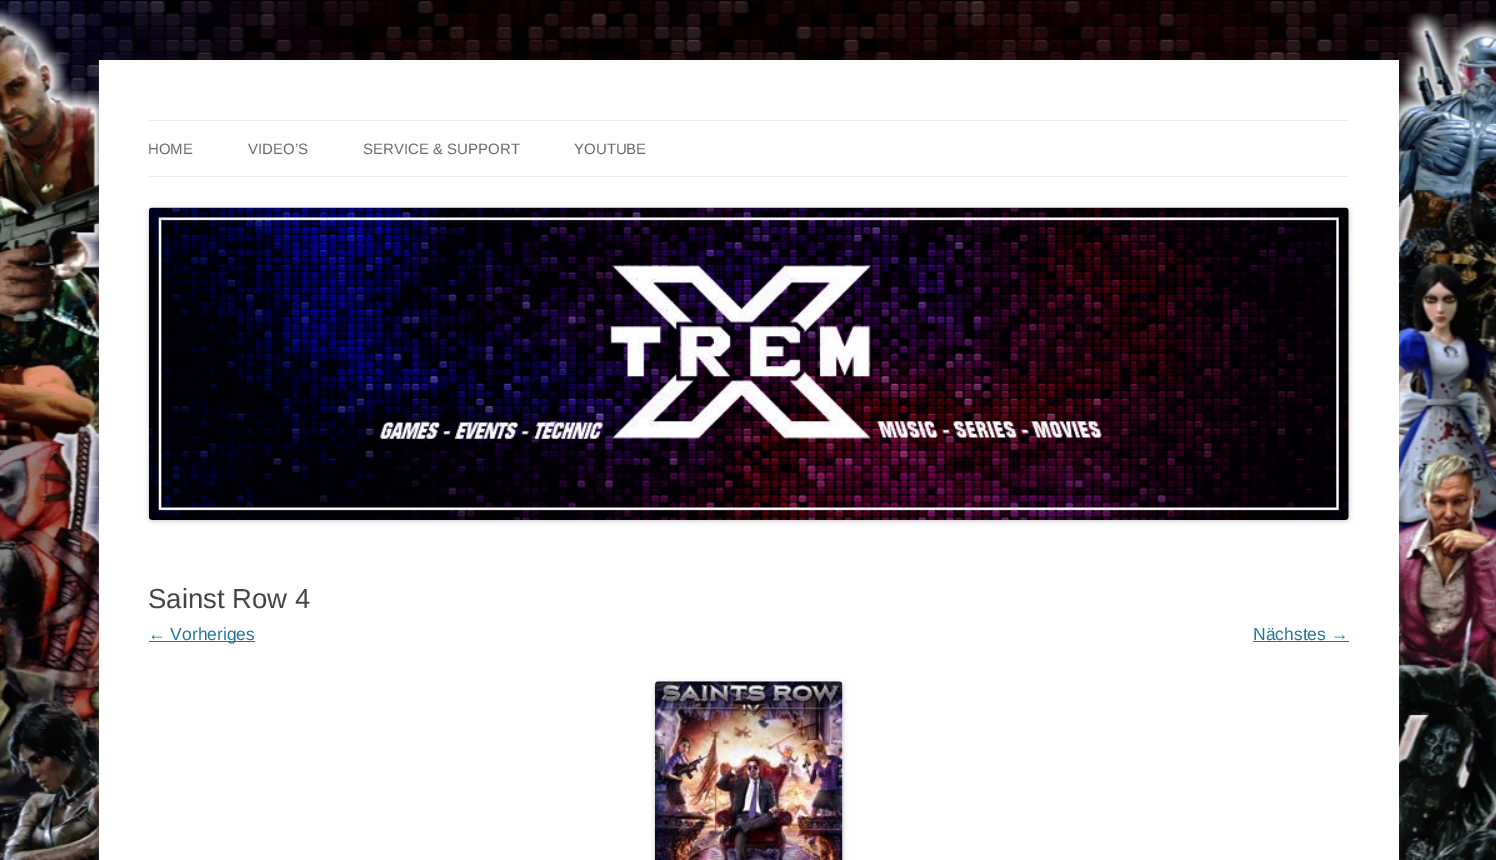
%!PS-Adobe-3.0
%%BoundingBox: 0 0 1496 860
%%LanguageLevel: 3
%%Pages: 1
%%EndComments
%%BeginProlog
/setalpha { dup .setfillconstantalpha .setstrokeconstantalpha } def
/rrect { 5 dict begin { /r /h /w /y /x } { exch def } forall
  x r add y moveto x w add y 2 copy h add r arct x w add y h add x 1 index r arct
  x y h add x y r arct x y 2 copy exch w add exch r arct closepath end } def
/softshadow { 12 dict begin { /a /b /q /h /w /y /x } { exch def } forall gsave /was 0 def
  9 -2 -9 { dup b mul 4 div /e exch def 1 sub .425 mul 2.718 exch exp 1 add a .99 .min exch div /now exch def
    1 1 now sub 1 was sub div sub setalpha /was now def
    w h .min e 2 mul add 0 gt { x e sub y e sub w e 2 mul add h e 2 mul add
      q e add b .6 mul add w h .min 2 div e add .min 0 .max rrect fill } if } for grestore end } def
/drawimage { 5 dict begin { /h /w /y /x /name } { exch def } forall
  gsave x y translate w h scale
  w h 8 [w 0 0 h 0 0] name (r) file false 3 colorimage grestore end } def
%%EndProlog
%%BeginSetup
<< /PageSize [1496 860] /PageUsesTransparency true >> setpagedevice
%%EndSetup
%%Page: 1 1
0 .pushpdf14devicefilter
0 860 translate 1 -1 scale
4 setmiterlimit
1 setgray
0 0 1496 860 rectfill
(images/1.raw) 0 0 1496 860 drawimage
0.392 setgray
99 63 1300 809 0 4 0.3 softshadow
1 setgray
99 60 1300 800 rectfill
0.929 setgray
149 120 1200 1 rectfill
149 176 1200 1 rectfill
0 setgray
149 209 1200 312 4 2.5 0.2 softshadow
(images/2.raw) 148 207 1201 313 drawimage
0.129 0.459 0.608 setrgbcolor
149 641 106 1 rectfill
1253 641 96 1 rectfill
0 setgray
655 683 188 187 4 2.5 0.2 softshadow
(images/3.raw) 655 681 188 179 drawimage
/LiberationSans-Regular [15 0 0 -15 0 0] selectfont
0.416 setgray
148 154 moveto (HOME) show
248 154 moveto (VIDEO’S) show
363 154 moveto (SERVICE & SUPPORT) show
574 154 moveto (YOUTUBE) show
/LiberationSans-Regular [27.5 0 0 -27.5 0 0] selectfont
0.267 setgray
148 608 moveto (Sainst Row 4) show
/LiberationSans-Regular [17.5 0 0 -17.5 0 0] selectfont
0.129 0.459 0.608 setrgbcolor
148 640 moveto (← Vorheriges) show
1253 640 moveto (Nächstes →) show
.poppdf14devicefilter showpage
%%EOF
